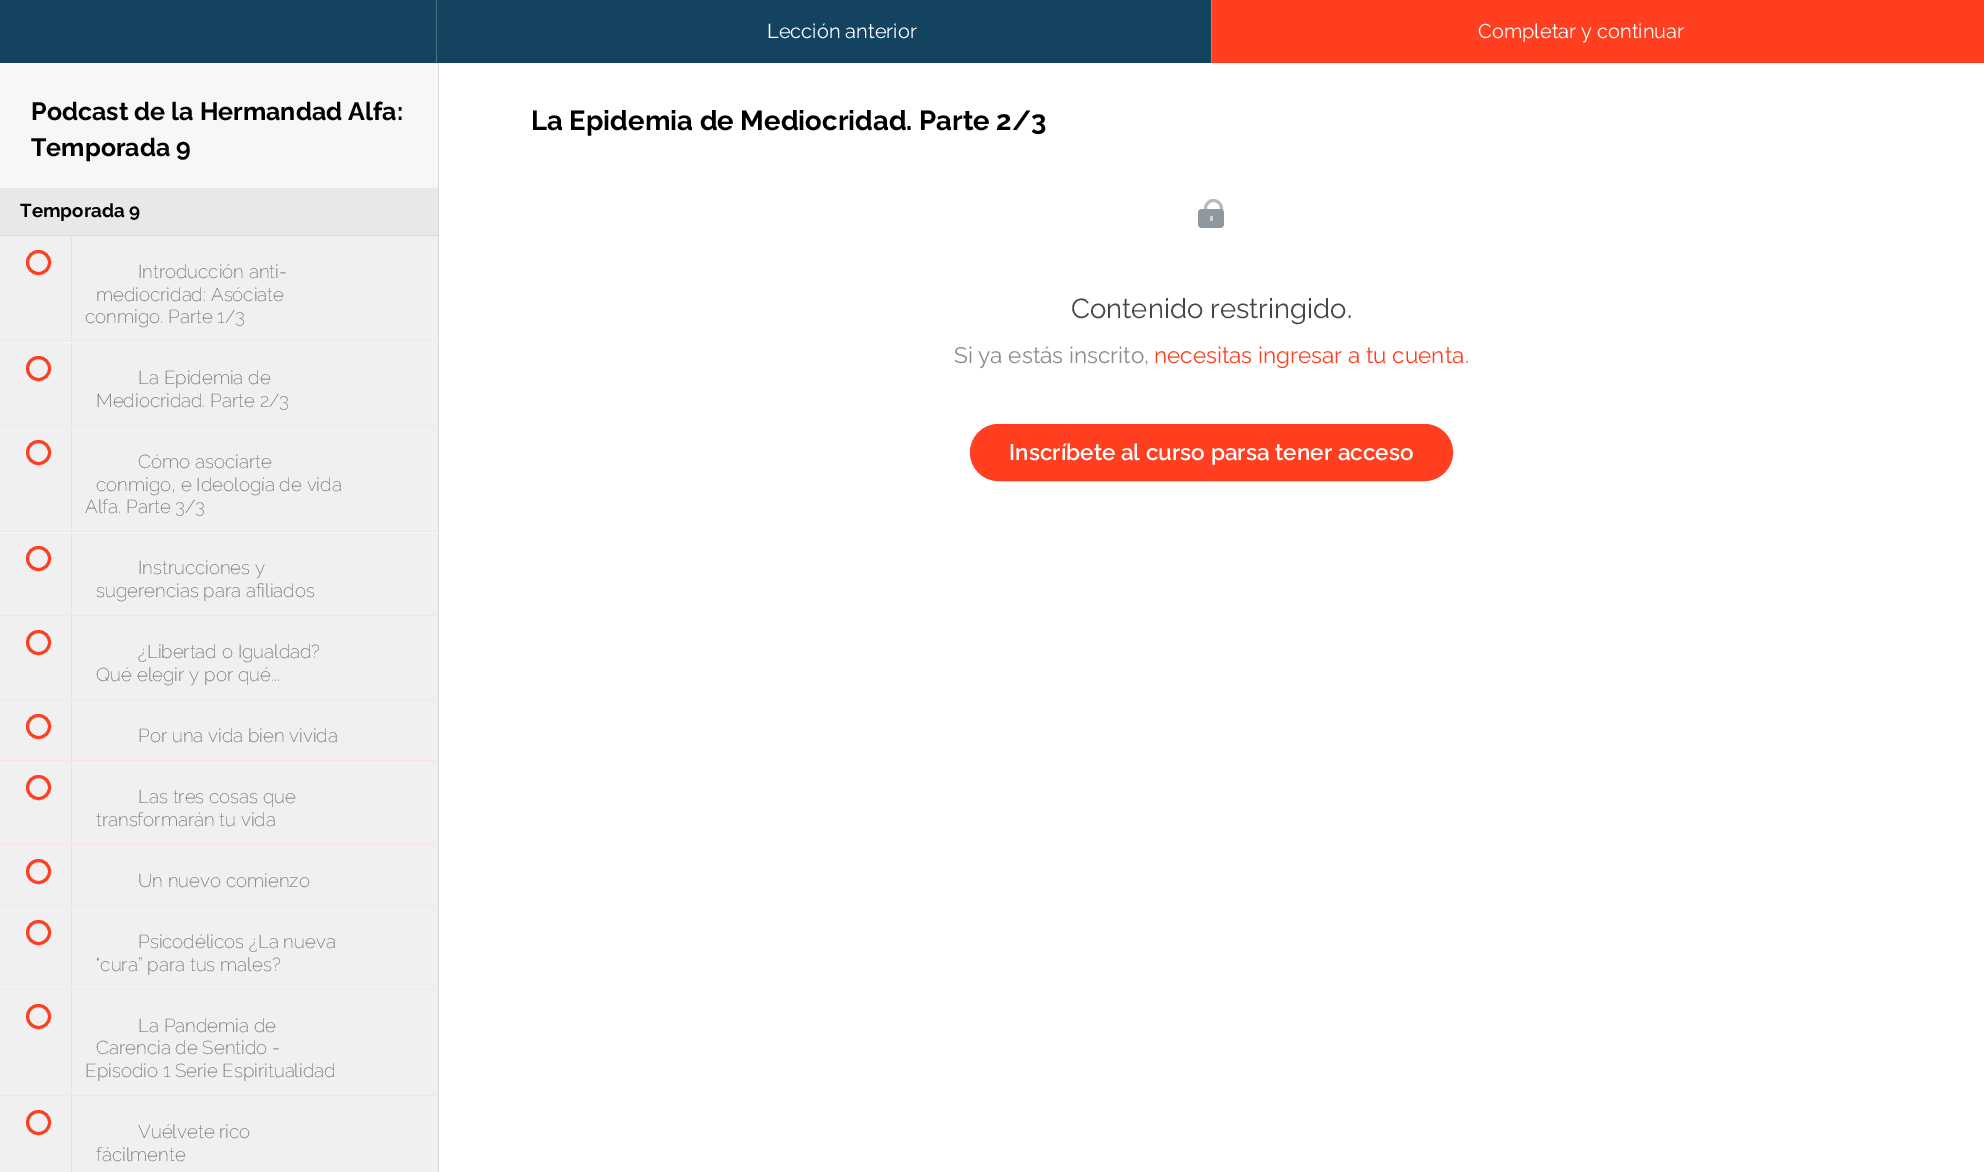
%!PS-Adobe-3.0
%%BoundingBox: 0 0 1984 1172
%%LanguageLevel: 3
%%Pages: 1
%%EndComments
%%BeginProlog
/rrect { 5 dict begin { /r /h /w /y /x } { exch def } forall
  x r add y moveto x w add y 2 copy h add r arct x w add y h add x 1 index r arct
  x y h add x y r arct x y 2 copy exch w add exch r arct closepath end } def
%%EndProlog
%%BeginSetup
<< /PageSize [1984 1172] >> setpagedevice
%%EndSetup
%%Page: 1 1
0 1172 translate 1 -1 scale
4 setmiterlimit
1 setgray
0 0 1984 1172 rectfill
0.075 0.263 0.38 setrgbcolor
0 0 1211 63 rectfill
0.306 0.439 0.525 setrgbcolor
436 0 1 63 rectfill
1 0.247 0.125 setrgbcolor
1212 0 772 63 rectfill
0.953 0.431 0.345 setrgbcolor
1211 0 1 63 rectfill
0.969 setgray
0 63 438 470 rectfill
0.843 0.855 0.859 setrgbcolor
438 63 1 1109 rectfill
0.91 setgray
0 188 438 47 rectfill
0.918 0.843 0.831 setrgbcolor
0 235 438 1 rectfill
0.973 0.898 0.882 setrgbcolor
0 341 438 1 rectfill
0.941 setgray
0 236 438 105 rectfill
1 0.247 0.125 setrgbcolor
3 setlinewidth
newpath 38.5 262.5 11 0 360 arc closepath stroke
0.949 0.871 0.859 setrgbcolor
71 236 1 105 rectfill
0.973 0.898 0.882 setrgbcolor
0 425 438 1 rectfill
0.941 setgray
0 343 438 82 rectfill
1 0.247 0.125 setrgbcolor
newpath 38.5 368.5 11 0 360 arc closepath stroke
0.949 0.871 0.859 setrgbcolor
71 343 1 82 rectfill
0.973 0.898 0.882 setrgbcolor
0 531 438 1 rectfill
0.941 setgray
0 426 438 105 rectfill
1 0.247 0.125 setrgbcolor
newpath 38.5 452.5 11 0 360 arc closepath stroke
0.949 0.871 0.859 setrgbcolor
71 426 1 105 rectfill
0.973 0.898 0.882 setrgbcolor
0 615 438 1 rectfill
0.941 setgray
0 533 438 82 rectfill
1 0.247 0.125 setrgbcolor
newpath 38.5 558.5 11 0 360 arc closepath stroke
0.949 0.871 0.859 setrgbcolor
71 533 1 82 rectfill
0.973 0.898 0.882 setrgbcolor
0 699 438 1 rectfill
0.941 setgray
0 616 438 83 rectfill
1 0.247 0.125 setrgbcolor
newpath 38.5 642.5 11 0 360 arc closepath stroke
0.949 0.871 0.859 setrgbcolor
71 616 1 83 rectfill
0.973 0.898 0.882 setrgbcolor
0 760 438 1 rectfill
0.941 setgray
0 700 438 60 rectfill
1 0.247 0.125 setrgbcolor
newpath 38.5 726.5 11 0 360 arc closepath stroke
0.949 0.871 0.859 setrgbcolor
71 700 1 60 rectfill
0.973 0.898 0.882 setrgbcolor
0 844 438 1 rectfill
0.941 setgray
0 761 438 83 rectfill
1 0.247 0.125 setrgbcolor
newpath 38.5 787.5 11 0 360 arc closepath stroke
0.949 0.871 0.859 setrgbcolor
71 761 1 83 rectfill
0.973 0.898 0.882 setrgbcolor
0 905 438 1 rectfill
0.941 setgray
0 845 438 60 rectfill
1 0.247 0.125 setrgbcolor
newpath 38.5 871.5 11 0 360 arc closepath stroke
0.949 0.871 0.859 setrgbcolor
71 845 1 60 rectfill
0.973 0.898 0.882 setrgbcolor
0 989 438 1 rectfill
0.941 setgray
0 906 438 83 rectfill
1 0.247 0.125 setrgbcolor
newpath 38.5 932.5 11 0 360 arc closepath stroke
0.949 0.871 0.859 setrgbcolor
71 906 1 83 rectfill
0.973 0.898 0.882 setrgbcolor
0 1095 438 1 rectfill
0.941 setgray
0 990 438 105 rectfill
1 0.247 0.125 setrgbcolor
newpath 38.5 1016.5 11 0 360 arc closepath stroke
0.949 0.871 0.859 setrgbcolor
71 990 1 105 rectfill
0.941 setgray
0 1096 438 76 rectfill
1 0.247 0.125 setrgbcolor
newpath 38.5 1122.5 11 0 360 arc closepath stroke
0.949 0.871 0.859 setrgbcolor
71 1096 1 76 rectfill
0.71 0.729 0.749 setrgbcolor
1205.5 200.5 16 24 8 rrect stroke
0.561 0.596 0.624 setrgbcolor
1198 209 26 19 4 rrect fill
0.827 0.843 0.863 setrgbcolor
1210 216 3 5 1.5 rrect fill
1 0.247 0.125 setrgbcolor
970.5 424.5 482 56 28 rrect gsave fill grestore
1 setlinewidth
stroke
/Raleway-Regular [20 0 0 -20 0 0] selectfont
1 setgray
767 38 moveto (Lección anterior) show
1478 38 moveto (Completar y continuar) show
/Raleway-Bold [25 0 0 -25 0 0] selectfont
0 setgray
31 120 moveto (Podcast de la Hermandad Alfa:) show
31 156 moveto (Temporada 9) show
/Raleway-Bold [18.75 0 0 -18.75 0 0] selectfont
20 217 moveto (Temporada 9) show
/Raleway-ExtraLight [18.75 0 0 -18.75 0 0] selectfont
0.404 setgray
138 278 moveto (Introducción anti-) show
96 301 moveto (mediocridad: Asóciate) show
85 323 moveto (conmigo. Parte 1/3) show
138 384 moveto (La Epidemia de) show
96 407 moveto (Mediocridad. Parte 2/3) show
138 468 moveto (Cómo asociarte) show
96 491 moveto (conmigo, e Ideología de vida) show
85 513 moveto (Alfa. Parte 3/3) show
138 574 moveto (Instrucciones y) show
96 597 moveto (sugerencias para afiliados) show
138 658 moveto (¿Libertad o Igualdad?) show
96 681 moveto (Qué elegir y por qué...) show
138 742 moveto (Por una vida bien vivida) show
138 803 moveto (Las tres cosas que) show
96 826 moveto (transformarán tu vida) show
138 887 moveto (Un nuevo comienzo) show
138 948 moveto (Psicodélicos ¿La nueva) show
96 971 moveto ("cura” para tus males?) show
138 1032 moveto (La Pandemia de) show
96 1054 moveto (Carencia de Sentido -) show
85 1077 moveto (Episodio 1 Serie Espiritualidad) show
138 1138 moveto (Vuélvete rico) show
96 1161 moveto (fácilmente) show
/Raleway-Bold [27.5 0 0 -27.5 0 0] selectfont
0 setgray
531 130 moveto (La Epidemia de Mediocridad. Parte 2/3) show
/Raleway-Regular [27.5 0 0 -27.5 0 0] selectfont
0.271 setgray
1071 318 moveto (Contenido restringido.) show
/Raleway-Regular [22.5 0 0 -22.5 0 0] selectfont
0.545 setgray
954 363 moveto (Si ya estás inscrito,) show
1 0.247 0.125 setrgbcolor
1154 363 moveto (necesitas ingresar a tu cuenta) show
0.545 setgray
1465 363 moveto (.) show
/Raleway-SemiBold [22.5 0 0 -22.5 0 0] selectfont
1 setgray
1009 460 moveto (Inscríbete al curso parsa tener acceso) show
showpage
%%EOF
